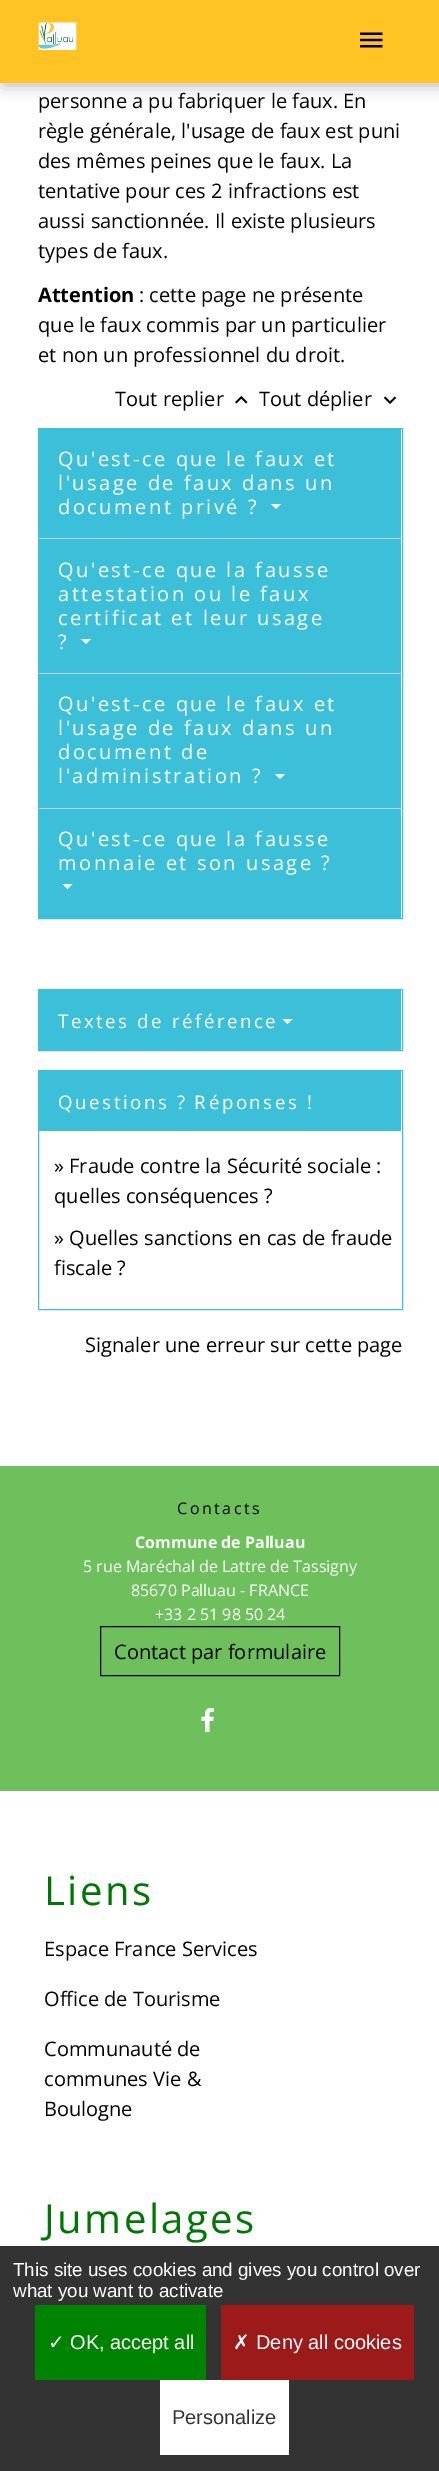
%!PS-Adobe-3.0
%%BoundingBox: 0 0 439 2471
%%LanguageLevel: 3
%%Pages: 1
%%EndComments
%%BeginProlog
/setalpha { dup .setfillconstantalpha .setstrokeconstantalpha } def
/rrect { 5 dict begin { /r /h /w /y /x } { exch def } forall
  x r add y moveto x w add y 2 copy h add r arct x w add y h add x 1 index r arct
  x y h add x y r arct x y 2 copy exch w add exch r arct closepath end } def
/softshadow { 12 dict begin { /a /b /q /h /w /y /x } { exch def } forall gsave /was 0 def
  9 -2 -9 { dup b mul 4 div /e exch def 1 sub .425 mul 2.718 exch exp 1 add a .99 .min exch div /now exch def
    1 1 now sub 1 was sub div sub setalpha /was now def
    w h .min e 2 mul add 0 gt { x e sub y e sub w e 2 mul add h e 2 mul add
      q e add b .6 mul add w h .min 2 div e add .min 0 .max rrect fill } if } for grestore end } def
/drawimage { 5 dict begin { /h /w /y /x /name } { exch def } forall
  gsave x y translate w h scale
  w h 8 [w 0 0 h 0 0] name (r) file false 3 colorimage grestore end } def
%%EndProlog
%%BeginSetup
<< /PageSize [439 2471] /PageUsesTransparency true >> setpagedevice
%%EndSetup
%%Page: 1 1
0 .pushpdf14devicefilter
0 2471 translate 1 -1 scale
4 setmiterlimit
1 setgray
0 0 439 2471 rectfill
0 setgray
3 3 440 82 0 8 0.3 softshadow
1 0.769 0.141 setrgbcolor
0 0 439 83 rectfill
(images/1.raw) 38 22 39 28 drawimage
(images/2.raw) 360 32 23 16 drawimage
(images/3.raw) 235 396 13 8 drawimage
(images/4.raw) 383 396 14 8 drawimage
0.235 0.753 0.851 setrgbcolor
38.5 428.5 364 490 rectstroke
39 429 362 109 rectfill
1 setgray
newpath 271 504 moveto 281 504 lineto 276 509 lineto closepath fill
0.8 setgray
39 538 362 1 rectfill
0.235 0.753 0.851 setrgbcolor
39 539 362 134 rectfill
1 setgray
newpath 81 639 moveto 91 639 lineto 86 644 lineto closepath fill
0.8 setgray
39 673 362 1 rectfill
0.235 0.753 0.851 setrgbcolor
39 674 362 134 rectfill
1 setgray
newpath 275 774 moveto 285 774 lineto 280 779 lineto closepath fill
0.8 setgray
39 808 362 1 rectfill
0.235 0.753 0.851 setrgbcolor
39 809 362 109 rectfill
1 setgray
newpath 62.5 884 moveto 72.5 884 lineto 67.5 889 lineto closepath fill
0.235 0.753 0.851 setrgbcolor
38.5 989.5 364 61 rectstroke
39 990 362 60 rectfill
1 setgray
newpath 282.5 1019 moveto 292.5 1019 lineto 287.5 1024 lineto closepath fill
0.235 0.753 0.851 setrgbcolor
38.5 1070.5 364 239 rectstroke
39 1071 362 60 rectfill
0.427 0.753 0.357 setrgbcolor
0 1466 439 325 rectfill
0 setgray
100.5 1626.5 239 49 rectstroke
(images/5.raw) 201 1707 13 26 drawimage
0.2 setgray
0 2246 439 225 rectfill
0 0.514 0 setrgbcolor
35 2305 171 75 rectfill
0.612 0.102 0.102 setrgbcolor
221 2305 193 75 rectfill
1 setgray
160 2380 129 75 rectfill
/OpenSans-Regular [20 0 0 -20 0 0] selectfont
0 setgray
38 108 moveto (personne a pu fabriquer le faux. En) show
38 138 moveto (règle générale, l'usage de faux est puni) show
38 168 moveto (des mêmes peines que le faux. La) show
38 198 moveto (tentative pour ces 2 infractions est) show
38 228 moveto (aussi sanctionnée. Il existe plusieurs) show
38 258 moveto (types de faux.) show
/OpenSans-Bold [20 0 0 -20 0 0] selectfont
38 302 moveto (Attention) show
/OpenSans-Regular [20 0 0 -20 0 0] selectfont
139 302 moveto (: cette page ne présente) show
38 332 moveto (que le faux commis par un particulier) show
38 362 moveto (et non un professionnel du droit.) show
115 406 moveto (Tout replier) show
259 406 moveto (Tout déplier) show
1 setgray
58 466 moveto 2.5 0 (Qu'est-ce que le faux et) ashow
58 490 moveto 2.5 0 (l'usage de faux dans un) ashow
58 514 moveto 2.5 0 (document privé ?) ashow
58 577 moveto 2.5 0 (Qu'est-ce que la fausse) ashow
58 601 moveto 2.5 0 (attestation ou le faux) ashow
58 625 moveto 2.5 0 (certificat et leur usage) ashow
58 649 moveto 2.5 0 (?) ashow
58 711 moveto 2.5 0 (Qu'est-ce que le faux et) ashow
58 735 moveto 2.5 0 (l'usage de faux dans un) ashow
58 759 moveto 2.5 0 (document de) ashow
58 783 moveto 2.5 0 (l'administration ?) ashow
58 846 moveto 2.5 0 (Qu'est-ce que la fausse) ashow
58 870 moveto 2.5 0 (monnaie et son usage ?) ashow
/OpenSans-Regular [18.75 0 0 -18.75 0 0] selectfont
58 1028 moveto 2.5 0 (Textes de référence) ashow
58 1109 moveto 2.5 0 (Questions ? Réponses !) ashow
/OpenSans-Regular [20 0 0 -20 0 0] selectfont
0 setgray
54 1173 moveto (» Fraude contre la Sécurité sociale :) show
54 1203 moveto (quelles conséquences ?) show
54 1245 moveto (» Quelles sanctions en cas de fraude) show
54 1275 moveto (fiscale ?) show
85 1352 moveto (Signaler une erreur sur cette page) show
/OpenSans-Regular [16 0 0 -16 0 0] selectfont
177 1514 moveto 2.5 0 (Contacts) ashow
/OpenSans-Bold [16 0 0 -16 0 0] selectfont
1 setgray
135 1548 moveto (Commune de Palluau) show
/OpenSans-Regular [16 0 0 -16 0 0] selectfont
83 1572 moveto (5 rue Maréchal de Lattre de Tassigny) show
131 1596 moveto (85670 Palluau - FRANCE) show
155 1620 moveto (+33 2 51 98 50 24) show
/OpenSans-Regular [20 0 0 -20 0 0] selectfont
0 setgray
114 1659 moveto (Contact par formulaire) show
/OpenSans-Regular [40 0 0 -40 0 0] selectfont
0 0.463 0.02 setrgbcolor
44 1905 moveto 2.5 0 (Liens) ashow
/OpenSans-Regular [20 0 0 -20 0 0] selectfont
0 setgray
44 1956 moveto (Espace France Services) show
44 2006 moveto (Office de Tourisme) show
44 2056 moveto (Communauté de) show
44 2086 moveto (communes Vie &) show
44 2116 moveto (Boulogne) show
/OpenSans-Regular [40 0 0 -40 0 0] selectfont
0 0.463 0.02 setrgbcolor
44 2233 moveto 2.5 0 (Jumelages) ashow
/LiberationSans-Regular [18.75 0 0 -18.75 0 0] selectfont
1 setgray
13 2276 moveto (This site uses cookies and gives you control over) show
13 2297 moveto (what you want to activate) show
/DejaVuSans-Regular [20 0 0 -20 0 0] selectfont
48 2349 moveto (✓) show
/LiberationSans-Regular [20 0 0 -20 0 0] selectfont
70 2349 moveto (OK, accept all) show
/DejaVuSans-Regular [20 0 0 -20 0 0] selectfont
233 2349 moveto (✗) show
/LiberationSans-Regular [20 0 0 -20 0 0] selectfont
256 2349 moveto (Deny all cookies) show
0.2 setgray
172 2424 moveto (Personalize) show
.poppdf14devicefilter showpage
%%EOF
